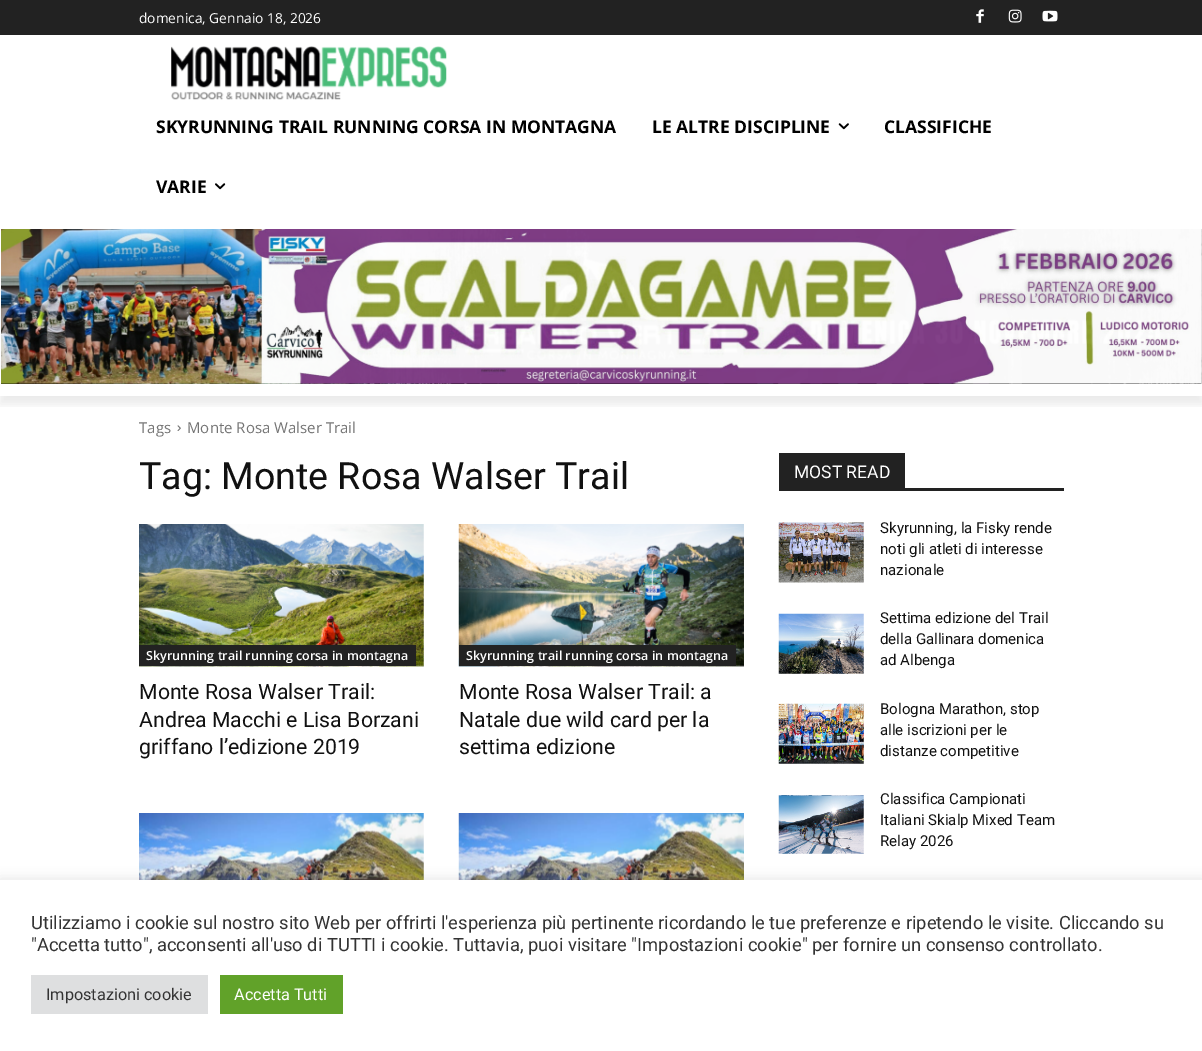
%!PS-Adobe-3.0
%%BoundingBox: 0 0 1202 1051
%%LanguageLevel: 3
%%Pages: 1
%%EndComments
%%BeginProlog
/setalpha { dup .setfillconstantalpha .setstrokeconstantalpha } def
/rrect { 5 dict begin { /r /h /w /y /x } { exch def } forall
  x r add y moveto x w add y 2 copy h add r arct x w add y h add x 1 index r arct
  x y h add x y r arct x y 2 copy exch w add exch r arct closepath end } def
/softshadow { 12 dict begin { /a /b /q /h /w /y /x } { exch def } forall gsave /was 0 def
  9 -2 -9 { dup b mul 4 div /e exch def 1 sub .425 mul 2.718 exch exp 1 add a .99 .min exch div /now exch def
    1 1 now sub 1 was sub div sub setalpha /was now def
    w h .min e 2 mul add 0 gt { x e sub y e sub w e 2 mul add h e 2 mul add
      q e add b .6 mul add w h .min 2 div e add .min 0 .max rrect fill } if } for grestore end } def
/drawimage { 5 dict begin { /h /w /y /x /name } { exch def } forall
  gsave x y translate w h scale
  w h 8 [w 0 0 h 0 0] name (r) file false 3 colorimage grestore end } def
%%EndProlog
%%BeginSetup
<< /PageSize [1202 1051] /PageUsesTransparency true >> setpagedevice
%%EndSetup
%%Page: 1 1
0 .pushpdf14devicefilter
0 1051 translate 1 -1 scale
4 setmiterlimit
1 setgray
0 0 1202 1051 rectfill
0.133 setgray
0 0 1202 35 rectfill
(images/1.raw) 976 9 8 14 drawimage
(images/2.raw) 1008 9 14 14 drawimage
(images/3.raw) 1042 10 16 12 drawimage
(images/4.raw) 171 46 276 54 drawimage
(images/7.raw) 1 229 1201 155 drawimage
(images/8.raw) 1 229 1201 155 drawimage
gsave
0 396 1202 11 rectclip
0 setgray
0 8 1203 396 0 5 0.08 softshadow
grestore
(images/5.raw) 838 123 11 7 drawimage
(images/6.raw) 215 183 11 7 drawimage
(images/9.raw) 177 425 4 6 drawimage
(images/10.raw) 139 524 285 143 drawimage
139 645 277 21 rectfill
(images/11.raw) 458 524 286 143 drawimage
459 645 277 21 rectfill
(images/12.raw) 139 813 285 67 drawimage
(images/13.raw) 458 813 286 67 drawimage
779 488 285 3 rectfill
779 453 126 35 rectfill
(images/14.raw) 778 522 86 61 drawimage
(images/15.raw) 778 613 86 61 drawimage
(images/16.raw) 778 703 86 61 drawimage
(images/17.raw) 778 795 86 59 drawimage
0.675 0.671 0.671 setrgbcolor
0 879 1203 171 0 6 0.3 softshadow
1 setgray
0 880 1202 171 rectfill
0.871 0.875 0.878 setrgbcolor
31 975 177 39 rectfill
0.38 0.635 0.161 setrgbcolor
220 975 123 39 rectfill
/OpenSans-Regular [13.75 0 0 -13.75 0 0] selectfont
1 setgray
139 23 moveto (domenica, Gennaio 18, 2026) show
/OpenSans-Bold [17.5 0 0 -17.5 0 0] selectfont
0 setgray
156 133 moveto (SKYRUNNING TRAIL RUNNING CORSA IN MONTAGNA) show
652 133 moveto (LE ALTRE DISCIPLINE) show
884 133 moveto (CLASSIFICHE) show
156 193 moveto (VARIE) show
/OpenSans-Regular [15 0 0 -15 0 0] selectfont
0.455 setgray
139 433 moveto (Tags) show
187 433 moveto (Monte Rosa Walser Trail) show
/Roboto-Regular [37.5 0 0 -37.5 0 0] selectfont
0.067 setgray
139 489 moveto (Tag: Monte Rosa Walser Trail) show
/OpenSans-SemiBold [12.5 0 0 -12.5 0 0] selectfont
1 setgray
146 660 moveto (Skyrunning trail running corsa in montagna) show
/Roboto-Regular [21.25 0 0 -21.25 0 0] selectfont
0.067 setgray
139 699 moveto (Monte Rosa Walser Trail:) show
139 727 moveto (Andrea Macchi e Lisa Borzani) show
139 754 moveto (griffano l’edizione 2019) show
/OpenSans-SemiBold [12.5 0 0 -12.5 0 0] selectfont
1 setgray
466 660 moveto (Skyrunning trail running corsa in montagna) show
/Roboto-Regular [21.25 0 0 -21.25 0 0] selectfont
0.067 setgray
459 699 moveto (Monte Rosa Walser Trail: a) show
459 727 moveto (Natale due wild card per la) show
459 754 moveto (settima edizione) show
/Roboto-Regular [17.5 0 0 -17.5 0 0] selectfont
1 setgray
794 478 moveto (MOST READ) show
/Roboto-Regular [15 0 0 -15 0 0] selectfont
0.067 setgray
880 533 moveto (Skyrunning, la Fisky rende) show
880 554 moveto (noti gli atleti di interesse) show
880 575 moveto (nazionale) show
880 623 moveto (Settima edizione del Trail) show
880 644 moveto (della Gallinara domenica) show
880 665 moveto (ad Albenga) show
880 714 moveto (Bologna Marathon, stop) show
880 735 moveto (alle iscrizioni per le) show
880 756 moveto (distanze competitive) show
880 804 moveto (Classifica Campionati) show
880 825 moveto (Italiani Skialp Mixed Team) show
880 846 moveto (Relay 2026) show
/Roboto-Regular [18.33 0 0 -18.33 0 0] selectfont
0.2 setgray
31 929 moveto (Utilizziamo i cookie sul nostro sito Web per offrirti l'esperienza più pertinente ricordando le tue preferenze e ripetendo le visite. Cliccando su) show
31 951 moveto ("Accetta tutto", acconsenti all'uso di TUTTI i cookie. Tuttavia, puoi visitare "Impostazioni cookie" per fornire un consenso controllato.) show
/Roboto-Regular [16.25 0 0 -16.25 0 0] selectfont
46 1000 moveto (Impostazioni cookie) show
1 setgray
234 1000 moveto (Accetta Tutti) show
.poppdf14devicefilter showpage
%%EOF
